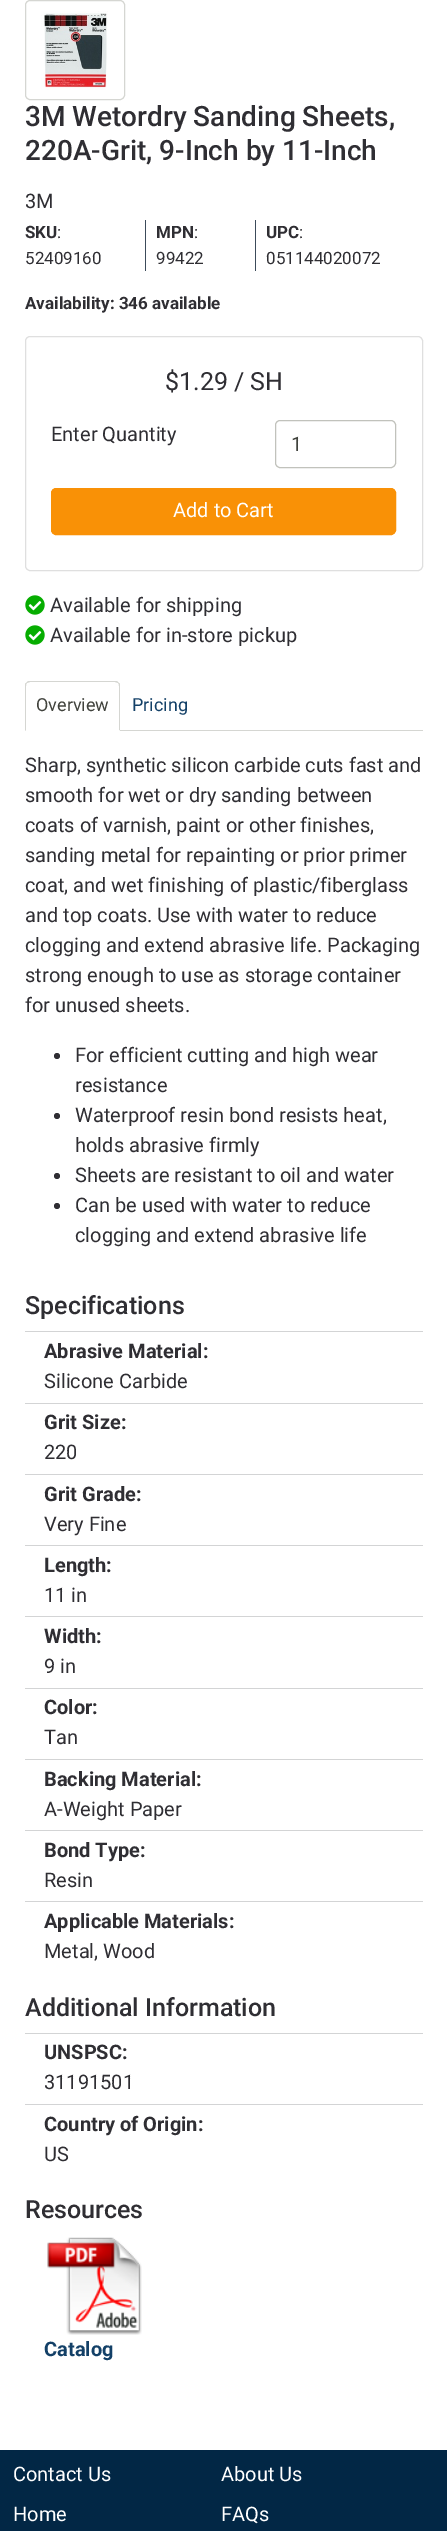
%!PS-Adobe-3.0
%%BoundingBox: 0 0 447 2531
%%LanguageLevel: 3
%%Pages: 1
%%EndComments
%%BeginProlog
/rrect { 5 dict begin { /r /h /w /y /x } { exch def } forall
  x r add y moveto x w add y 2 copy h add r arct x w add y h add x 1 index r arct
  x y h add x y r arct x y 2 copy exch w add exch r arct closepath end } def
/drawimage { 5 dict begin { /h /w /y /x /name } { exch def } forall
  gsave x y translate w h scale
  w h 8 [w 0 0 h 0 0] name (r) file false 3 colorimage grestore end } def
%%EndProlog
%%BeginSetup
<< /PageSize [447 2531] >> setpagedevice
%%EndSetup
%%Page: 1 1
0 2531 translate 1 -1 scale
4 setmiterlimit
1 setgray
0 0 447 2531 rectfill
0.835 0.839 0.824 setrgbcolor
25.5 0.5 99 99 4.5 rrect stroke
(images/1.raw) 41 11 67 79 drawimage
0.235 0.294 0.353 setrgbcolor
145 220 1 51 rectfill
255 220 1 51 rectfill
0.875 setgray
25.5 336.5 397 234 4.5 rrect stroke
0.757 0.761 0.737 setrgbcolor
275.5 420.5 120 47 4.5 rrect stroke
0.976 0.569 0.024 setrgbcolor
51.5 488.5 344 46 4.5 rrect gsave fill grestore
stroke
(images/2.raw) 25 595 20 20 drawimage
(images/2.raw) 25 625 20 20 drawimage
0.835 0.839 0.824 setrgbcolor
120 730 303 1 rectfill
newpath 30 682 moveto 27 683 lineto 26 683 lineto 28 681 lineto 117 681 lineto 119 683 lineto 118 683 lineto 115 682 lineto closepath fill
newpath 120 731 moveto 120 686 lineto 120 685 120 683 119 683 curveto 118 683 lineto 119 684 119 685 119 686 curveto 119 730 lineto closepath fill
1 setgray
newpath 120 731 moveto 25 731 lineto 26 730 lineto 119 730 lineto closepath fill
0.835 0.839 0.824 setrgbcolor
newpath 25 686 moveto 25 731 lineto 26 730 lineto 26 686 lineto 26 685 26 684 27 683 curveto 26 683 lineto 25 683 25 685 25 686 curveto closepath fill
0.184 0.18 0.2 setrgbcolor
newpath 57 1056 3 0 360 arc closepath fill
newpath 57 1116 3 0 360 arc closepath fill
newpath 57 1176 3 0 360 arc closepath fill
newpath 57 1206 3 0 360 arc closepath fill
0.827 0.831 0.835 setrgbcolor
25 1331 398 1 rectfill
25 1403 398 1 rectfill
25 1474 398 1 rectfill
25 1545 398 1 rectfill
25 1616 398 1 rectfill
25 1688 398 1 rectfill
25 1759 398 1 rectfill
25 1830 398 1 rectfill
25 1901 398 1 rectfill
25 2033 398 1 rectfill
25 2104 398 1 rectfill
(images/3.raw) 47 2237 95 98 drawimage
0.008 0.153 0.271 setrgbcolor
0 2450 447 81 rectfill
/Roboto-Medium [28 0 0 -28 0 0] selectfont
0.184 0.18 0.2 setrgbcolor
25 126 moveto (3M Wetordry Sanding Sheets,) show
25 160 moveto (220A-Grit, 9-Inch by 11-Inch) show
/Roboto-Regular [20 0 0 -20 0 0] selectfont
25 208 moveto (3M) show
/Roboto-Bold [17 0 0 -17 0 0] selectfont
25 238 moveto (SKU) show
/Roboto-Regular [17 0 0 -17 0 0] selectfont
57 238 moveto (:) show
25 264 moveto (52409160) show
/Roboto-Bold [17 0 0 -17 0 0] selectfont
156 238 moveto (MPN) show
/Roboto-Regular [17 0 0 -17 0 0] selectfont
194 238 moveto (:) show
156 264 moveto (99422) show
/Roboto-Bold [17 0 0 -17 0 0] selectfont
266 238 moveto (UPC) show
/Roboto-Regular [17 0 0 -17 0 0] selectfont
299 238 moveto (:) show
266 264 moveto (051144020072) show
/Roboto-Bold [17 0 0 -17 0 0] selectfont
25 309 moveto (Availability: 346 available) show
/Roboto-Regular [25 0 0 -25 0 0] selectfont
165 390 moveto ($1.29 / SH) show
/Roboto-Regular [20 0 0 -20 0 0] selectfont
51 441 moveto (Enter Quantity) show
0.255 0.263 0.239 setrgbcolor
291 451 moveto (1) show
1 setgray
173 517 moveto (Add to Cart) show
0.184 0.18 0.2 setrgbcolor
50 612 moveto (Available for shipping) show
50 642 moveto (Available for in-store pickup) show
/Roboto-Regular [18 0 0 -18 0 0] selectfont
0.255 0.263 0.239 setrgbcolor
36 711 moveto (Overview) show
0.075 0.251 0.404 setrgbcolor
132 711 moveto (Pricing) show
/Roboto-Regular [20 0 0 -20 0 0] selectfont
0.184 0.18 0.2 setrgbcolor
25 772 moveto (Sharp, synthetic silicon carbide cuts fast and) show
25 802 moveto (smooth for wet or dry sanding between) show
25 832 moveto (coats of varnish, paint or other finishes,) show
25 862 moveto (sanding metal for repainting or prior primer) show
25 892 moveto (coat, and wet finishing of plastic/fiberglass) show
25 922 moveto (and top coats. Use with water to reduce) show
25 952 moveto (clogging and extend abrasive life. Packaging) show
25 982 moveto (strong enough to use as storage container) show
25 1012 moveto (for unused sheets.) show
75 1062 moveto (For efficient cutting and high wear) show
75 1092 moveto (resistance) show
75 1122 moveto (Waterproof resin bond resists heat,) show
75 1152 moveto (holds abrasive firmly) show
75 1182 moveto (Sheets are resistant to oil and water) show
75 1212 moveto (Can be used with water to reduce) show
75 1242 moveto (clogging and extend abrasive life) show
/Roboto-Medium [25 0 0 -25 0 0] selectfont
25 1314 moveto (Specifications) show
/Roboto-Bold [20 0 0 -20 0 0] selectfont
44 1358 moveto (Abrasive Material:) show
/Roboto-Regular [20 0 0 -20 0 0] selectfont
44 1388 moveto (Silicone Carbide) show
/Roboto-Bold [20 0 0 -20 0 0] selectfont
44 1429 moveto (Grit Size:) show
/Roboto-Regular [20 0 0 -20 0 0] selectfont
44 1459 moveto (220) show
/Roboto-Bold [20 0 0 -20 0 0] selectfont
44 1501 moveto (Grit Grade:) show
/Roboto-Regular [20 0 0 -20 0 0] selectfont
44 1531 moveto (Very Fine) show
/Roboto-Bold [20 0 0 -20 0 0] selectfont
44 1572 moveto (Length:) show
/Roboto-Regular [20 0 0 -20 0 0] selectfont
44 1602 moveto (11 in) show
/Roboto-Bold [20 0 0 -20 0 0] selectfont
44 1643 moveto (Width:) show
/Roboto-Regular [20 0 0 -20 0 0] selectfont
44 1673 moveto (9 in) show
/Roboto-Bold [20 0 0 -20 0 0] selectfont
44 1714 moveto (Color:) show
/Roboto-Regular [20 0 0 -20 0 0] selectfont
44 1744 moveto (Tan) show
/Roboto-Bold [20 0 0 -20 0 0] selectfont
44 1786 moveto (Backing Material:) show
/Roboto-Regular [20 0 0 -20 0 0] selectfont
44 1816 moveto (A-Weight Paper) show
/Roboto-Bold [20 0 0 -20 0 0] selectfont
44 1857 moveto (Bond Type:) show
/Roboto-Regular [20 0 0 -20 0 0] selectfont
44 1887 moveto (Resin) show
/Roboto-Bold [20 0 0 -20 0 0] selectfont
44 1928 moveto (Applicable Materials:) show
/Roboto-Regular [20 0 0 -20 0 0] selectfont
44 1958 moveto (Metal, Wood) show
/Roboto-Medium [25 0 0 -25 0 0] selectfont
25 2016 moveto (Additional Information) show
/Roboto-Bold [20 0 0 -20 0 0] selectfont
44 2059 moveto (UNSPSC:) show
/Roboto-Regular [20 0 0 -20 0 0] selectfont
44 2089 moveto (31191501) show
/Roboto-Bold [20 0 0 -20 0 0] selectfont
44 2131 moveto (Country of Origin:) show
/Roboto-Regular [20 0 0 -20 0 0] selectfont
44 2161 moveto (US) show
/Roboto-Medium [25 0 0 -25 0 0] selectfont
25 2218 moveto (Resources) show
/Roboto-Bold [20 0 0 -20 0 0] selectfont
0.075 0.251 0.404 setrgbcolor
44 2356 moveto (Catalog) show
/Roboto-Regular [20 0 0 -20 0 0] selectfont
1 setgray
13 2481 moveto (Contact Us) show
221 2481 moveto (About Us) show
13 2521 moveto (Home) show
221 2521 moveto (FAQs) show
showpage
%%EOF
